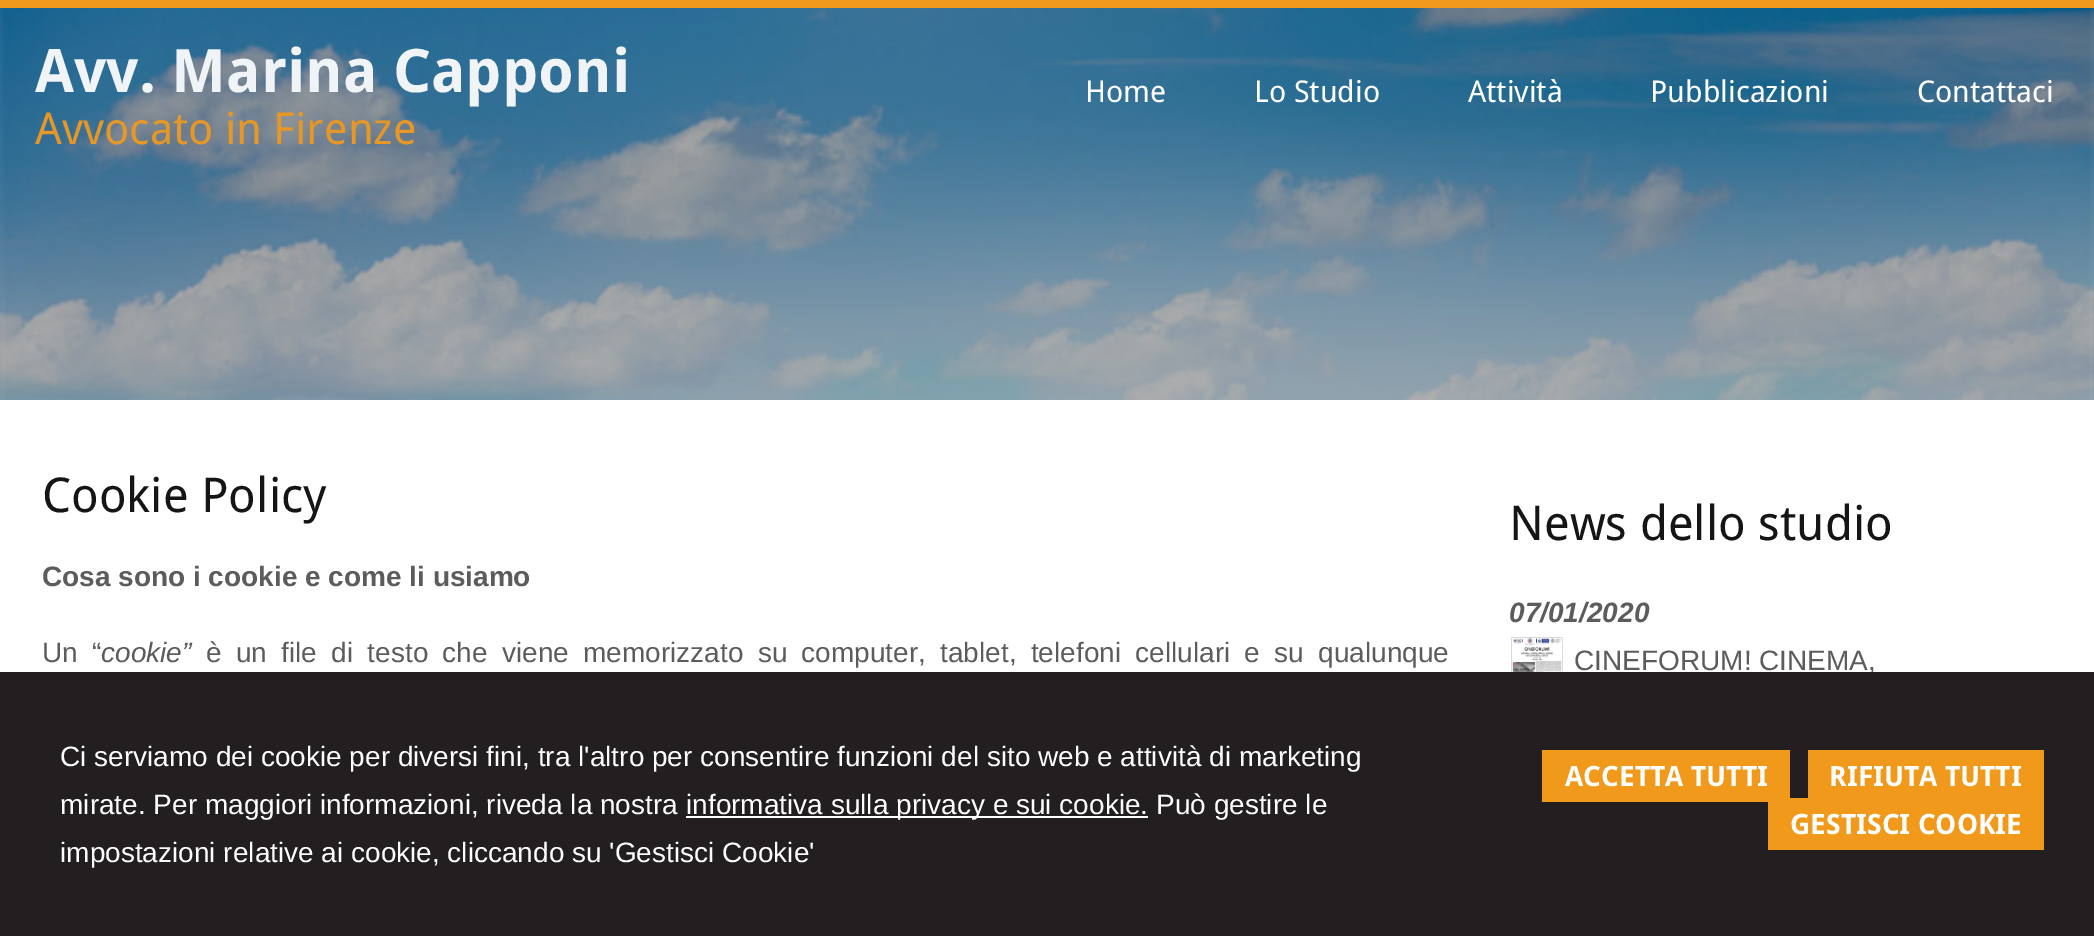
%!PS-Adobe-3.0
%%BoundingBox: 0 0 2094 936
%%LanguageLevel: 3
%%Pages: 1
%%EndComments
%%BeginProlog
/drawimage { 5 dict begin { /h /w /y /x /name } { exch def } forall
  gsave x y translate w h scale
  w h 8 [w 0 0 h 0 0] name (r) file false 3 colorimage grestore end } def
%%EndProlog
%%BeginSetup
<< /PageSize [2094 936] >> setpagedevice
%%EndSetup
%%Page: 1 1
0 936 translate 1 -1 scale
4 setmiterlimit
1 setgray
0 0 2094 936 rectfill
(images/1.raw) 0 8 2094 392 drawimage
0.945 0.6 0.106 setrgbcolor
0 0 2094 8 rectfill
(images/2.raw) 1511 637 52 35 drawimage
/DroidSans-Bold [60 0 0 -60 0 0] selectfont
0.941 0.957 0.965 setrgbcolor
35 92 moveto (Avv. Marina Capponi) show
/DroidSans-Regular [44 0 0 -44 0 0] selectfont
0.902 0.592 0.145 setrgbcolor
35 144 moveto (Avvocato in Firenze) show
/DroidSans-Regular [30 0 0 -30 0 0] selectfont
1 setgray
1085 102 moveto (Home) show
1254 102 moveto (Lo Studio) show
1468 102 moveto (Attività) show
1650 102 moveto (Pubblicazioni) show
1917 102 moveto (Contattaci) show
/DroidSans-Regular [48 0 0 -48 0 0] selectfont
0.082 setgray
42 512 moveto (Cookie Policy) show
/LiberationSans-Bold [28 0 0 -28 0 0] selectfont
0.361 setgray
42 586 moveto (Cosa sono i cookie e come li usiamo) show
/LiberationSans-Regular [28 0 0 -28 0 0] selectfont
42 662 moveto 6.5 0 32 (Un “) widthshow
/LiberationSans-Italic [28 0 0 -28 0 0] selectfont
101 662 moveto (cookie”) show
/LiberationSans-Regular [28 0 0 -28 0 0] selectfont
206 662 moveto 6.5 0 32 (è un file di testo che viene memorizzato su computer, tablet, telefoni cellulari e su qualunque) widthshow
/DroidSans-Regular [48 0 0 -48 0 0] selectfont
0.082 setgray
1509 540 moveto (News dello studio) show
/LiberationSans-BoldItalic [28 0 0 -28 0 0] selectfont
0.361 setgray
1509 622 moveto (07/01/2020) show
/LiberationSans-Regular [28 0 0 -28 0 0] selectfont
1574 670 moveto (CINEFORUM! CINEMA,) show
0.137 0.122 0.125 setrgbcolor
0 672 2094 264 rectfill
1 setgray
60 766 moveto (Ci serviamo dei cookie per diversi fini, tra l'altro per consentire funzioni del sito web e attività di marketing) show
60 814 moveto (mirate. Per maggiori informazioni, riveda la nostra) show
686 816 462 2 rectfill
686 814 moveto (informativa sulla privacy e sui cookie. Può gestire le) show
60 862 moveto (impostazioni relative ai cookie, cliccando su 'Gestisci Cookie') show
0.945 0.6 0.106 setrgbcolor
1542 750 248 52 rectfill
/DroidSans-Bold [28 0 0 -28 0 0] selectfont
1 setgray
1565 786 moveto (ACCETTA TUTTI) show
0.945 0.6 0.106 setrgbcolor
1808 750 236 48 rectfill
1 setgray
1829 786 moveto (RIFIUTA TUTTI) show
0.945 0.6 0.106 setrgbcolor
1768 798 276 52 rectfill
1 setgray
1790 834 moveto (GESTISCI COOKIE) show
showpage
%%EOF
